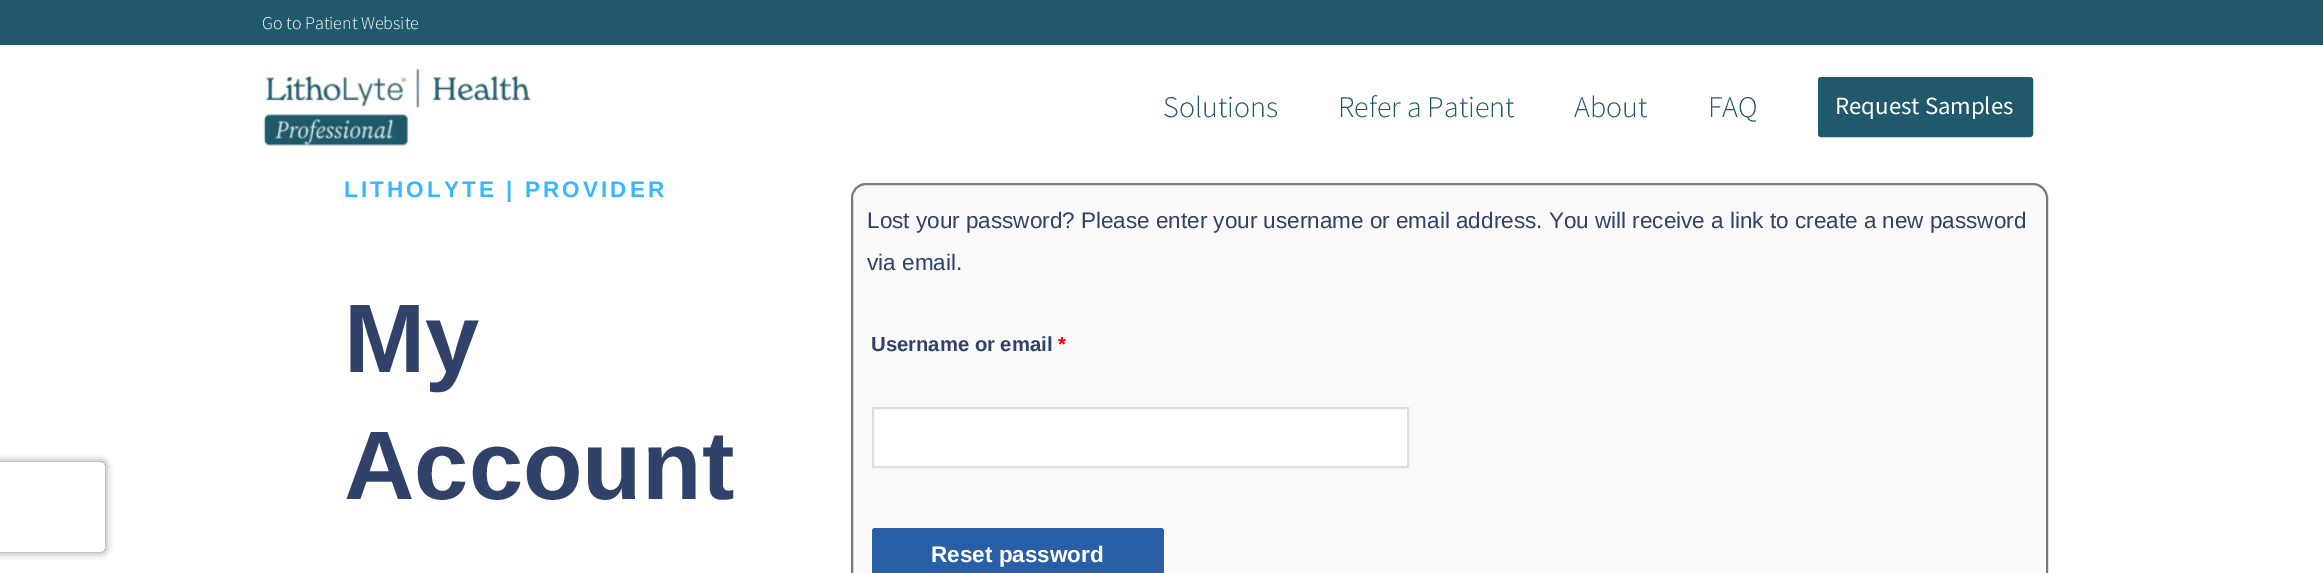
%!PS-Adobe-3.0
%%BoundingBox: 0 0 2323 573
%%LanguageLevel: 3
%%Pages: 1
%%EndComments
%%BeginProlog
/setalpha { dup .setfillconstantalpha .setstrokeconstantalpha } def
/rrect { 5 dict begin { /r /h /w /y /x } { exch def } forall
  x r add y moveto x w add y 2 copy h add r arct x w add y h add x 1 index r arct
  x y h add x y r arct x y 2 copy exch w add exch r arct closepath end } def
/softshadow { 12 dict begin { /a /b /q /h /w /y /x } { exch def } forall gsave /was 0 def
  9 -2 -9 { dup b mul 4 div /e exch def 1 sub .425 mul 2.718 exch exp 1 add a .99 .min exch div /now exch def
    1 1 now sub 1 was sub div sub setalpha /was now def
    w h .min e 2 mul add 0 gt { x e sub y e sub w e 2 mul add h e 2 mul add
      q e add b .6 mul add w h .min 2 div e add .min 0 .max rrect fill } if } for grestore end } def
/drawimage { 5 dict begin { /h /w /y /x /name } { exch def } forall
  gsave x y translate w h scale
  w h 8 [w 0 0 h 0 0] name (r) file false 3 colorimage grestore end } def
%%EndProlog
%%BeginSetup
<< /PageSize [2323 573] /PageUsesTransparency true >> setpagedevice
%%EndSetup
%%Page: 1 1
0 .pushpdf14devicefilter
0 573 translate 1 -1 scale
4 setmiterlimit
1 setgray
0 0 2323 573 rectfill
0.122 0.349 0.42 setrgbcolor
0 0 2323 45 rectfill
(images/1.raw) 263 68 268 78 drawimage
1819 78 213 58 2 rrect gsave fill grestore
2 setlinewidth
stroke
gsave
newpath 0 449 moveto 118 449 lineto 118 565 lineto 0 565 lineto closepath -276 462 moveto 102 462 lineto 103.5 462 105 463.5 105 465 curveto 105 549 lineto 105 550.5 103.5 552 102 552 curveto -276 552 lineto -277.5 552 -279 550.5 -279 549 curveto -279 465 lineto -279 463.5 -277.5 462 -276 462 curveto closepath eoclip newpath
0.502 setgray
-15 462 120 90 3 4 1 softshadow
grestore
0.976 setgray
852 184 1195 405 14 rrect gsave fill grestore
0.478 setgray
stroke
1 setgray
newpath 873 408 moveto 1408 408 lineto 1408 467 lineto 873 467 lineto closepath gsave fill grestore
0.867 setgray
stroke
0.161 0.373 0.651 setrgbcolor
872 528 292 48 3 rrect fill
/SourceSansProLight-Light [18 0 0 -18 0 0] selectfont
1 setgray
262 29 moveto (Go to Patient Website) show
/SourceSansProLight-Light [30 0 0 -30 0 0] selectfont
0.122 0.349 0.42 setrgbcolor
1163 117 moveto (Solutions) show
1338 117 moveto (Refer a Patient) show
1574 117 moveto (About) show
1708 117 moveto (FAQ) show
/SourceSansPro-Regular [24.75 0 0 -24.75 0 0] selectfont
1 setgray
1835 114 moveto (Request Samples) show
/LiberationSans-Bold [22.5 0 0 -22.5 0 0] selectfont
0.22 0.714 1 setrgbcolor
344 197 moveto 3.1 0 (LITHOLYTE | PROVIDER) ashow
/LiberationSans-Bold [97.5 0 0 -97.5 0 0] selectfont
0.188 0.259 0.412 setrgbcolor
344 372 moveto (My) show
344 499 moveto (Account) show
/LiberationSans-Regular [22.5 0 0 -22.5 0 0] selectfont
867 228 moveto (Lost your password? Please enter your username or email address. You will receive a link to create a new password) show
867 270 moveto (via email.) show
/LiberationSans-Bold [20.25 0 0 -20.25 0 0] selectfont
871 351 moveto (Username or email) show
1 0 0 setrgbcolor
1058 351 moveto (*) show
/LiberationSans-Bold [22.5 0 0 -22.5 0 0] selectfont
1 setgray
931 562 moveto (Reset password) show
.poppdf14devicefilter showpage
%%EOF
